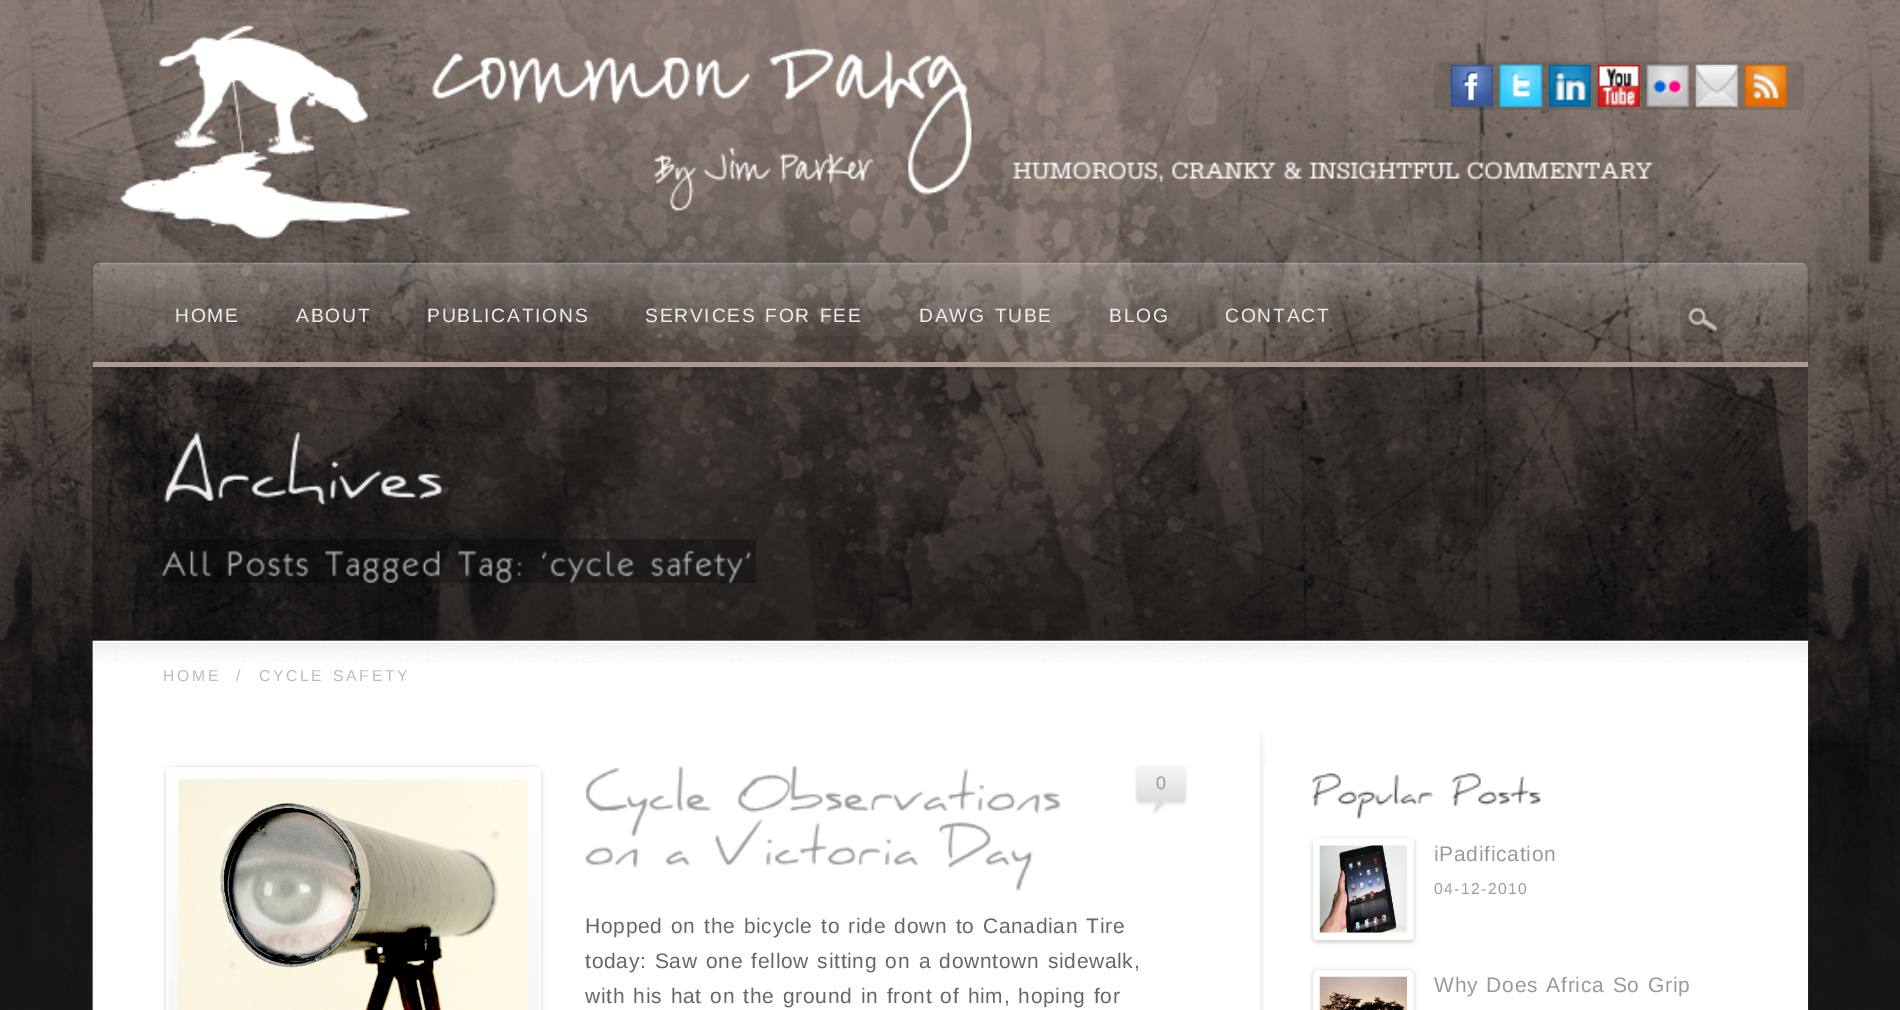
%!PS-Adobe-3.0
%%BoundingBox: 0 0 1900 1010
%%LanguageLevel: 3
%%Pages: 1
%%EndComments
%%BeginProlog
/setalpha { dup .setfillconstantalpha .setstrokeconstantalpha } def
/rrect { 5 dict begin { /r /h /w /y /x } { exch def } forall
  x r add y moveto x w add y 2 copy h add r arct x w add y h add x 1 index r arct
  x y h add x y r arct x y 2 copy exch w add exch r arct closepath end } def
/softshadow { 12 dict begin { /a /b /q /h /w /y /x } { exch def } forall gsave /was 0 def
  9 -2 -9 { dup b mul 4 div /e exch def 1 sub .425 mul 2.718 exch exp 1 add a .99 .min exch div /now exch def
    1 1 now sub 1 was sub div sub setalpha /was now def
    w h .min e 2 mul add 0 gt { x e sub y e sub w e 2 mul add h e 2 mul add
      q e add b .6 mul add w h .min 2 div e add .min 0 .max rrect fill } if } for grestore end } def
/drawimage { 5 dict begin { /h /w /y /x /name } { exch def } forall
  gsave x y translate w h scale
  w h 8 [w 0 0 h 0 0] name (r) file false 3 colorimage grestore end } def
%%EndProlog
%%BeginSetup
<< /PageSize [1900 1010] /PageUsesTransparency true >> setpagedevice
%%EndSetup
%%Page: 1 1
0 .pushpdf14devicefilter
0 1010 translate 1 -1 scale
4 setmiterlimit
0.671 0.6 0.561 setrgbcolor
0 0 1900 1010 rectfill
(images/1.raw) 0 0 1900 1010 drawimage
(images/2.raw) 120 24 1533 215 drawimage
(images/3.raw) 1433 61 371 49 drawimage
(images/4.raw) 1450 64 43 43 drawimage
(images/5.raw) 1499 64 43 43 drawimage
(images/6.raw) 1548 64 43 43 drawimage
(images/7.raw) 1597 64 43 43 drawimage
(images/8.raw) 1646 64 43 43 drawimage
(images/9.raw) 1695 64 43 43 drawimage
(images/10.raw) 1744 64 43 43 drawimage
(images/20.raw) 92 640 1717 370 drawimage
0.3 setalpha
0 setgray
92 367 1716 274 rectfill
gsave
newpath 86 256 moveto 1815 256 lineto 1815 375 lineto 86 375 lineto closepath 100 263 moveto 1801 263 lineto 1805 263 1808 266 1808 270 curveto 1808 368 lineto 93 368 lineto 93 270 lineto 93 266 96 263 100 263 curveto closepath eoclip newpath
1 setalpha
93 263 1715 105 7 2 0.3 softshadow
grestore
1 setalpha
(images/11.raw) 93 262 1715 74 drawimage
0.671 0.6 0.561 setrgbcolor
93 362 1715 5 rectfill
(images/12.raw) 1680 297 46 47 drawimage
(images/13.raw) 164 432 279 74 drawimage
0.3 setalpha
0 setgray
163 539 593 44 rectfill
1 setalpha
(images/14.raw) 162 549 50 28 drawimage
(images/15.raw) 227 550 82 27 drawimage
(images/16.raw) 325 549 115 34 drawimage
(images/17.raw) 458 550 64 33 drawimage
(images/18.raw) 541 550 93 33 drawimage
(images/19.raw) 650 550 102 33 drawimage
1 setgray
93 641 1715 369 rectfill
(images/21.raw) 93 642 1715 21 drawimage
0 setgray
166 768 375 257 7 2.5 0.2 softshadow
gsave
166 767 375 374 7 rrect clip newpath
gsave newpath 166 768 moveto 541 768 lineto 541 1010 lineto 166 1010 lineto closepath clip newpath
<< /ShadingType 2 /ColorSpace /DeviceRGB /Coords [168 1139 168 768] /Extend [true true] /Function << /FunctionType 2 /Domain [0 1] /C0 [0.949 0.949 0.949] /C1 [1 1 1] /N 1 >> >> shfill grestore
grestore
1 setgray
2 setlinewidth
167 768 373 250 6 rrect stroke
(images/22.raw) 178 779 351 231 drawimage
(images/23.raw) 585 766 126 71 drawimage
(images/24.raw) 738 765 323 49 drawimage
(images/25.raw) 584 846 55 22 drawimage
(images/26.raw) 664 850 26 16 drawimage
(images/27.raw) 715 819 203 47 drawimage
(images/28.raw) 939 822 94 69 drawimage
(images/29.raw) 1135 765 52 49 drawimage
(images/30.raw) 1260 731 6 32 drawimage
(images/31.raw) 1260 763 4 247 drawimage
(images/32.raw) 1312 773 122 47 drawimage
(images/33.raw) 1452 773 89 34 drawimage
0 setgray
1313 840 101 102 4 2.5 0.2 softshadow
1 setgray
1313 838 101 102 4 rrect fill
(images/34.raw) 1319 845 88 88 drawimage
gsave
newpath 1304 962 moveto 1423 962 lineto 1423 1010 lineto 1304 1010 lineto closepath 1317 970 moveto 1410 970 lineto 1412 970 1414 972 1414 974 curveto 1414 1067 lineto 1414 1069 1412 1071 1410 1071 curveto 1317 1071 lineto 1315 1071 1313 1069 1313 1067 curveto 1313 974 lineto 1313 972 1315 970 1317 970 curveto closepath eoclip newpath
0 setgray
1313 971 101 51 4 2.5 0.2 softshadow
grestore
(images/35.raw) 1319 976 88 34 drawimage
/LiberationSans-Regular [19.25 0 0 -19.25 0 0] selectfont
0.933 setgray
175 322 moveto 1.75 0 (HOME) ashow
296 322 moveto 1.75 0 (ABOUT) ashow
427 322 moveto 1.75 0 (PUBLICATIONS) ashow
645 322 moveto 1.75 0 32 1.75 0 (SERVICES FOR FEE) awidthshow
919 322 moveto 1.75 0 32 1.75 0 (DAWG TUBE) awidthshow
1109 322 moveto 1.75 0 (BLOG) ashow
1225 322 moveto 1.75 0 (CONTACT) ashow
/LiberationSans-Regular [15.75 0 0 -15.75 0 0] selectfont
0.733 setgray
163 681 moveto 2.6 0 (HOME) ashow
236 681 moveto 2.6 0 (/) ashow
259 681 moveto 1.75 0 32 2.6 0 (CYCLE SAFETY) awidthshow
/LiberationSans-Regular [18 0 0 -18 0 0] selectfont
0.6 setgray
1156 789 moveto 0.7 0 (0) ashow
/LiberationSans-Regular [21 0 0 -21 0 0] selectfont
0.4 setgray
585 933 moveto 1.75 0 32 0.7 0 (Hopped on the bicycle to ride down to Canadian Tire) awidthshow
585 968 moveto 1.75 0 32 0.7 0 (today: Saw one fellow sitting on a downtown sidewalk,) awidthshow
585 1003 moveto 1.75 0 32 0.7 0 (with his hat on the ground in front of him, hoping for) awidthshow
0.6 setgray
1434 861 moveto 0.7 0 (iPadification) ashow
/LiberationSans-Regular [15.75 0 0 -15.75 0 0] selectfont
0.671 0.6 0.561 setrgbcolor
1434 894 moveto 1.4 0 (04-12-2010) ashow
/LiberationSans-Regular [21 0 0 -21 0 0] selectfont
0.6 setgray
1434 992 moveto 1.75 0 32 0.7 0 (Why Does Africa So Grip) awidthshow
.poppdf14devicefilter showpage
%%EOF
